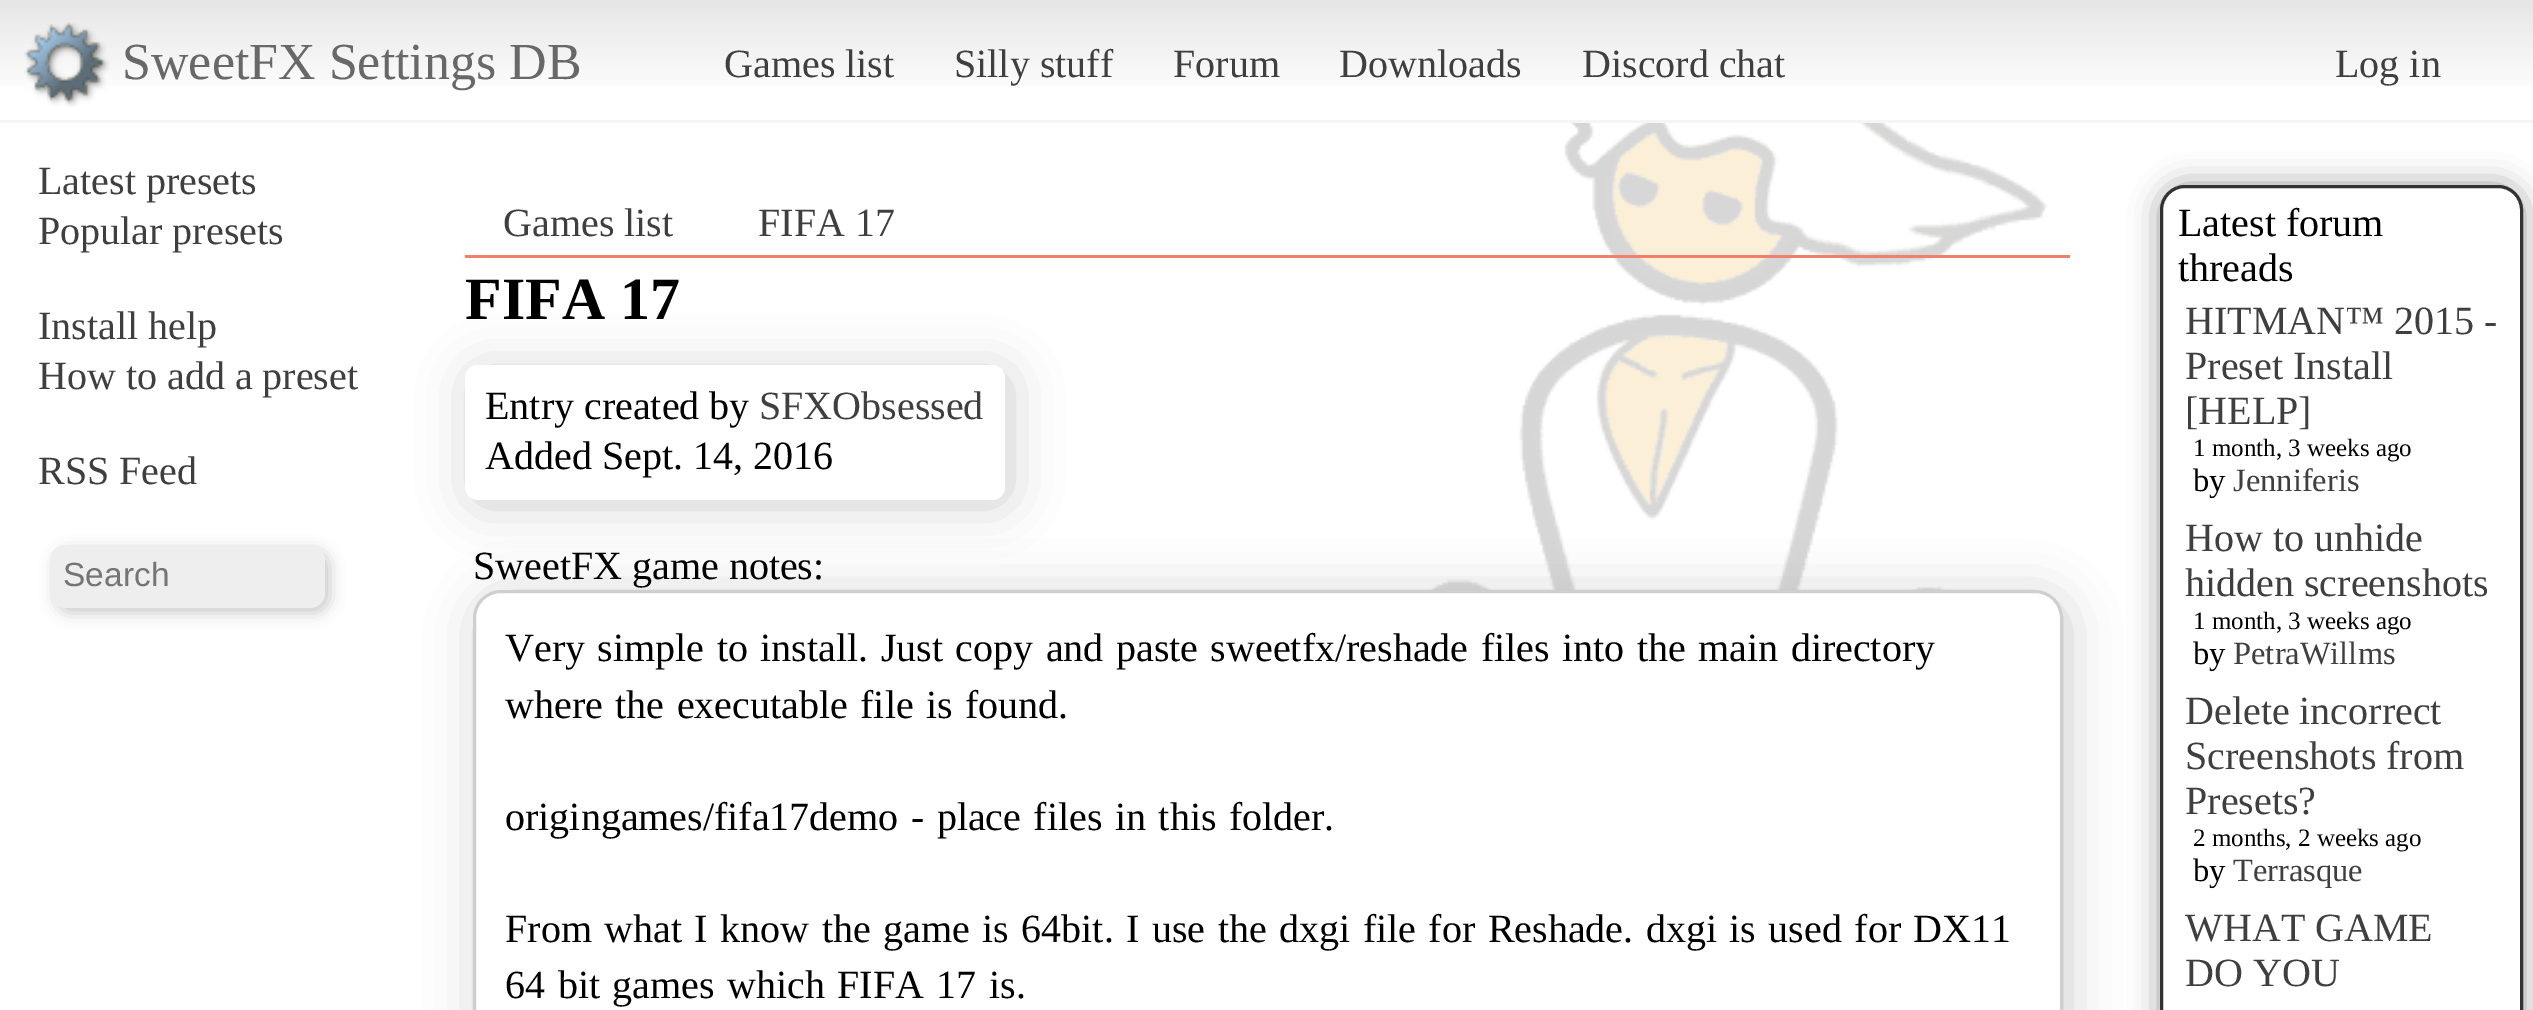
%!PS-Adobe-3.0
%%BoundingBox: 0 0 2533 1010
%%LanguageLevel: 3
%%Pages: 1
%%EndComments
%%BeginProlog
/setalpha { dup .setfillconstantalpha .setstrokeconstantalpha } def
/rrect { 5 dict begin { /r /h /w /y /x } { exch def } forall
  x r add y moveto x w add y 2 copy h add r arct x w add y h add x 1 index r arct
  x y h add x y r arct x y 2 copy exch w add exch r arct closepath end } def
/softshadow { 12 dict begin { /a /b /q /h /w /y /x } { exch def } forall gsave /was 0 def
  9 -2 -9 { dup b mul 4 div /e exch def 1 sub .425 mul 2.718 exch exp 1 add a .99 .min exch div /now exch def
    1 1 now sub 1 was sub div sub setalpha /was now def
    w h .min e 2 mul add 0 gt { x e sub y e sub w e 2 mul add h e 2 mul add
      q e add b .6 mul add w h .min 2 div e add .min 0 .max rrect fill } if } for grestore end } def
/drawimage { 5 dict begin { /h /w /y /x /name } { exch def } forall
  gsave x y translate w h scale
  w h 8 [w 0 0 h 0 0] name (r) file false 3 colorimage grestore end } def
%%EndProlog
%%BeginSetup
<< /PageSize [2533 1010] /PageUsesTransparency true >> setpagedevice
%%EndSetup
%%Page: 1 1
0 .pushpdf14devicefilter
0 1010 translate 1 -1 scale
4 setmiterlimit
1 setgray
0 0 2533 1010 rectfill
(images/1.raw) 1429 123 620 467 drawimage
gsave newpath 0 0 moveto 2533 0 lineto 2533 86 lineto 0 86 lineto closepath clip newpath
<< /ShadingType 2 /ColorSpace /DeviceRGB /Coords [1268 0 1268 120] /Extend [true true] /Function << /FunctionType 3 /Domain [0 1] /Functions [<< /FunctionType 2 /Domain [0 1] /C0 [0.902 0.902 0.902] /C1 [1 1 1] /N 1 >> << /FunctionType 2 /Domain [0 1] /C0 [1 1 1] /C1 [1 1 1] /N 1 >>] /Bounds [0.8] /Encode [0 1 0 1] >> >> shfill grestore
0.961 setgray
0 120 2533 3 rectfill
(images/2.raw) 24 22 86 85 drawimage
0.196 setgray
55 550 275 63 15 7.5 0.25 softshadow
0.933 setgray
50 545 275 63 15 rrect fill
0.941 0.502 0.416 setrgbcolor
465 255 1605 3 rectfill
0.714 setgray
470 370 540 135 13 25 0.68 softshadow
1 setgray
465 365 540 135 13 rrect fill
0.714 setgray
478 595 1590 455 28 25 0.68 softshadow
1 setgray
473 590 1590 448 28 rrect fill
0.19 setalpha
0 setgray
3 setlinewidth
474.5 591.5 1587 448 26.5 rrect stroke
gsave
newpath 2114 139 moveto 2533 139 lineto 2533 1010 lineto 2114 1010 lineto closepath 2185 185 moveto 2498 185 lineto 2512 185 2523 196 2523 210 curveto 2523 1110 lineto 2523 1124 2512 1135 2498 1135 curveto 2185 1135 lineto 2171 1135 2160 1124 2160 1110 curveto 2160 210 lineto 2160 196 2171 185 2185 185 curveto closepath eoclip newpath
1 setalpha
0.6 setgray
2160 185 363 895 25 15 1 softshadow
grestore
1 setalpha
0.2 setgray
2161.5 186.5 360 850 23.5 rrect stroke
/LiberationSerif-Regular [52 0 0 -52 0 0] selectfont
0.408 setgray
122 79 moveto (SweetFX Settings DB) show
/LiberationSerif-Regular [40 0 0 -40 0 0] selectfont
0.247 setgray
724 77 moveto (Games list) show
954 77 moveto (Silly stuff) show
1173 77 moveto (Forum) show
1339 77 moveto (Downloads) show
1582 77 moveto (Discord chat) show
2335 77 moveto (Log in) show
38 194 moveto (Latest presets) show
38 244 moveto (Popular presets) show
38 339 moveto (Install help) show
38 389 moveto (How to add a preset) show
38 484 moveto (RSS Feed) show
/LiberationSans-Regular [33.5 0 0 -33.5 0 0] selectfont
0.459 setgray
63 586 moveto (Search) show
/LiberationSerif-Regular [40 0 0 -40 0 0] selectfont
0.247 setgray
503 236 moveto (Games list) show
758 236 moveto (FIFA 17) show
/LiberationSerif-Bold [60 0 0 -60 0 0] selectfont
0 setgray
465 319 moveto (FIFA 17) show
/LiberationSerif-Regular [40 0 0 -40 0 0] selectfont
485 419 moveto (Entry created by) show
0.247 setgray
759 419 moveto (SFXObsessed) show
0 setgray
485 469 moveto (Added Sept. 14, 2016) show
473 579 moveto (SweetFX game notes:) show
505 661 moveto 2.5 0 32 (Very simple to install. Just copy and paste sweetfx/reshade files into the main directory) widthshow
505 718 moveto 2.5 0 32 (where the executable file is found.) widthshow
505 830 moveto 2.5 0 32 (origingames/fifa17demo - place files in this folder.) widthshow
505 942 moveto 2.5 0 32 (From what I know the game is 64bit. I use the dxgi file for Reshade. dxgi is used for DX11) widthshow
505 998 moveto 2.5 0 32 (64 bit games which FIFA 17 is.) widthshow
2178 236 moveto (Latest forum) show
2178 281 moveto (threads) show
0.247 setgray
2185 334 moveto (HITMAN™ 2015 -) show
2185 379 moveto (Preset Install) show
2185 424 moveto ([HELP]) show
/LiberationSerif-Regular [25 0 0 -25 0 0] selectfont
0 setgray
2193 456 moveto (1 month, 3 weeks ago) show
/LiberationSerif-Regular [32.5 0 0 -32.5 0 0] selectfont
2193 491 moveto (by) show
0.247 setgray
2233 491 moveto (Jenniferis) show
/LiberationSerif-Regular [40 0 0 -40 0 0] selectfont
2185 551 moveto (How to unhide) show
2185 596 moveto (hidden screenshots) show
/LiberationSerif-Regular [25 0 0 -25 0 0] selectfont
0 setgray
2193 629 moveto (1 month, 3 weeks ago) show
/LiberationSerif-Regular [32.5 0 0 -32.5 0 0] selectfont
2193 664 moveto (by) show
0.247 setgray
2233 664 moveto (PetraWillms) show
/LiberationSerif-Regular [40 0 0 -40 0 0] selectfont
2185 724 moveto (Delete incorrect) show
2185 769 moveto (Screenshots from) show
2185 814 moveto (Presets?) show
/LiberationSerif-Regular [25 0 0 -25 0 0] selectfont
0 setgray
2193 846 moveto (2 months, 2 weeks ago) show
/LiberationSerif-Regular [32.5 0 0 -32.5 0 0] selectfont
2193 881 moveto (by) show
0.247 setgray
2233 881 moveto (Terrasque) show
/LiberationSerif-Regular [40 0 0 -40 0 0] selectfont
2185 941 moveto (WHAT GAME) show
2185 986 moveto (DO YOU) show
.poppdf14devicefilter showpage
%%EOF
